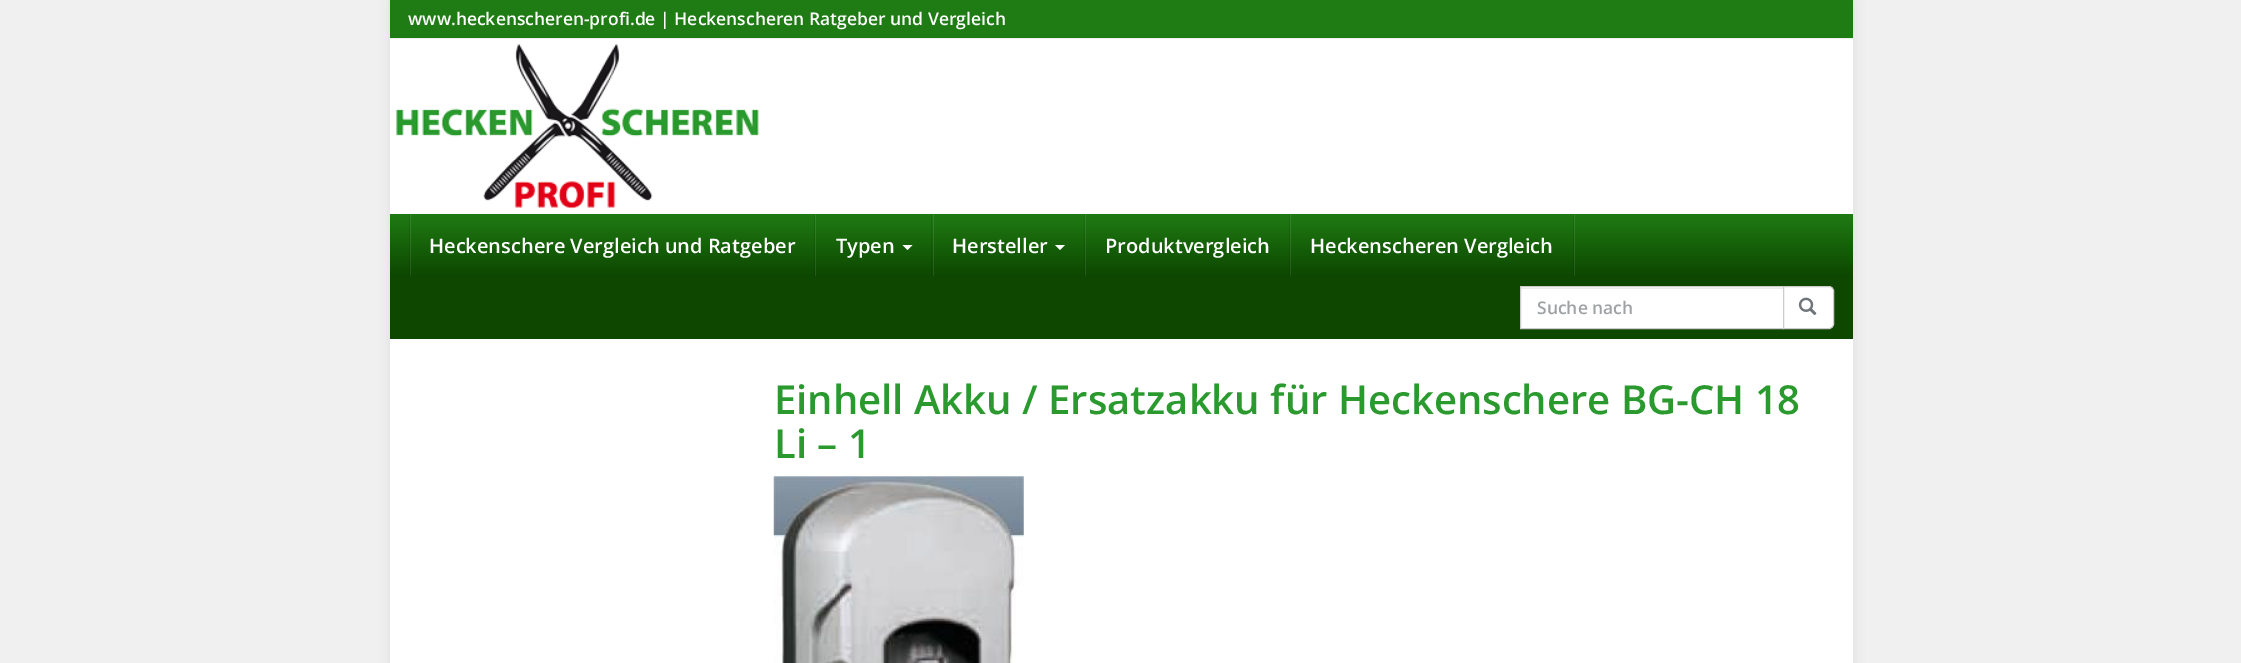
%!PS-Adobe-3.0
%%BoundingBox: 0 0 2241 663
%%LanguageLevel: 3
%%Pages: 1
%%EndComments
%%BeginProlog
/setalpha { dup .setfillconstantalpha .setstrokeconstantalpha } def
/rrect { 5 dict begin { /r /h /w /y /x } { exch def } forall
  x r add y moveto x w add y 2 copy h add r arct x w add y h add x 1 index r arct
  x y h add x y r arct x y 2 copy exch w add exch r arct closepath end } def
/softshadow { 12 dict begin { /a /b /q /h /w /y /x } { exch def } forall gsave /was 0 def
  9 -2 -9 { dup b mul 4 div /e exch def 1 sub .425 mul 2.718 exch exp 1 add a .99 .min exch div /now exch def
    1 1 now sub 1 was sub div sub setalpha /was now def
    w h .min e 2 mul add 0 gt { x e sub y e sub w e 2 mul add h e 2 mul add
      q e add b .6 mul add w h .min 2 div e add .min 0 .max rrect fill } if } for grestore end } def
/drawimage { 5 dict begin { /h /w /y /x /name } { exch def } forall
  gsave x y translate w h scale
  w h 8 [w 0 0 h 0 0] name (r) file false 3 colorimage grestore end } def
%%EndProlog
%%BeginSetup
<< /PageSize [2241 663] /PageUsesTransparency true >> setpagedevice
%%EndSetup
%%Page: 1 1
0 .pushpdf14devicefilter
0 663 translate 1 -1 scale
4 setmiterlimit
0.941 setgray
0 0 2241 663 rectfill
0.867 setgray
390 0 1463 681 0 6 1 softshadow
1 setgray
390 39 1463 624 rectfill
0.122 0.482 0.075 setrgbcolor
390 0 1463 38 rectfill
0.941 setgray
390 38 1463 1 rectfill
(images/1.raw) 396 43 363 166 drawimage
gsave newpath 390 214 moveto 1853 214 lineto 1853 339 lineto 390 339 lineto closepath clip newpath
<< /ShadingType 2 /ColorSpace /DeviceRGB /Coords [1121 214 1121 339] /Extend [true true] /Function << /FunctionType 3 /Domain [0 1] /Functions [<< /FunctionType 2 /Domain [0 1] /C0 [0.122 0.482 0.075] /C1 [0.051 0.278 0] /N 1 >> << /FunctionType 2 /Domain [0 1] /C0 [0.051 0.278 0] /C1 [0.051 0.278 0] /N 1 >>] /Bounds [0.5] /Encode [0 1 0 1] >> >> shfill grestore
gsave newpath 1290 214 moveto 1291 214 lineto 1291 276 lineto 1290 276 lineto closepath clip newpath
<< /ShadingType 2 /ColorSpace /DeviceRGB /Coords [1121 214 1121 339] /Extend [true true] /Function << /FunctionType 3 /Domain [0 1] /Functions [<< /FunctionType 2 /Domain [0 1] /C0 [0.208 0.533 0.169] /C1 [0.145 0.349 0.102] /N 1 >> << /FunctionType 2 /Domain [0 1] /C0 [0.145 0.349 0.102] /C1 [0.145 0.349 0.102] /N 1 >>] /Bounds [0.5] /Encode [0 1 0 1] >> >> shfill grestore
gsave newpath 1573 214 moveto 1574 214 lineto 1574 276 lineto 1573 276 lineto closepath clip newpath
<< /ShadingType 2 /ColorSpace /DeviceRGB /Coords [1121 214 1121 339] /Extend [true true] /Function << /FunctionType 3 /Domain [0 1] /Functions [<< /FunctionType 2 /Domain [0 1] /C0 [0.11 0.435 0.067] /C1 [0.047 0.251 0] /N 1 >> << /FunctionType 2 /Domain [0 1] /C0 [0.047 0.251 0] /C1 [0.047 0.251 0] /N 1 >>] /Bounds [0.5] /Encode [0 1 0 1] >> >> shfill grestore
gsave newpath 1085 214 moveto 1086 214 lineto 1086 276 lineto 1085 276 lineto closepath clip newpath
<< /ShadingType 2 /ColorSpace /DeviceRGB /Coords [1121 214 1121 339] /Extend [true true] /Function << /FunctionType 3 /Domain [0 1] /Functions [<< /FunctionType 2 /Domain [0 1] /C0 [0.208 0.533 0.169] /C1 [0.145 0.349 0.102] /N 1 >> << /FunctionType 2 /Domain [0 1] /C0 [0.145 0.349 0.102] /C1 [0.145 0.349 0.102] /N 1 >>] /Bounds [0.5] /Encode [0 1 0 1] >> >> shfill grestore
gsave newpath 1289 214 moveto 1290 214 lineto 1290 276 lineto 1289 276 lineto closepath clip newpath
<< /ShadingType 2 /ColorSpace /DeviceRGB /Coords [1121 214 1121 339] /Extend [true true] /Function << /FunctionType 3 /Domain [0 1] /Functions [<< /FunctionType 2 /Domain [0 1] /C0 [0.11 0.435 0.067] /C1 [0.047 0.251 0] /N 1 >> << /FunctionType 2 /Domain [0 1] /C0 [0.047 0.251 0] /C1 [0.047 0.251 0] /N 1 >>] /Bounds [0.5] /Encode [0 1 0 1] >> >> shfill grestore
gsave newpath 933 214 moveto 934 214 lineto 934 276 lineto 933 276 lineto closepath clip newpath
<< /ShadingType 2 /ColorSpace /DeviceRGB /Coords [1121 214 1121 339] /Extend [true true] /Function << /FunctionType 3 /Domain [0 1] /Functions [<< /FunctionType 2 /Domain [0 1] /C0 [0.208 0.533 0.169] /C1 [0.145 0.349 0.102] /N 1 >> << /FunctionType 2 /Domain [0 1] /C0 [0.145 0.349 0.102] /C1 [0.145 0.349 0.102] /N 1 >>] /Bounds [0.5] /Encode [0 1 0 1] >> >> shfill grestore
gsave newpath 1084 214 moveto 1085 214 lineto 1085 276 lineto 1084 276 lineto closepath clip newpath
<< /ShadingType 2 /ColorSpace /DeviceRGB /Coords [1121 214 1121 339] /Extend [true true] /Function << /FunctionType 3 /Domain [0 1] /Functions [<< /FunctionType 2 /Domain [0 1] /C0 [0.11 0.435 0.067] /C1 [0.047 0.251 0] /N 1 >> << /FunctionType 2 /Domain [0 1] /C0 [0.047 0.251 0] /C1 [0.047 0.251 0] /N 1 >>] /Bounds [0.5] /Encode [0 1 0 1] >> >> shfill grestore
gsave newpath 815 214 moveto 816 214 lineto 816 276 lineto 815 276 lineto closepath clip newpath
<< /ShadingType 2 /ColorSpace /DeviceRGB /Coords [1121 214 1121 339] /Extend [true true] /Function << /FunctionType 3 /Domain [0 1] /Functions [<< /FunctionType 2 /Domain [0 1] /C0 [0.208 0.533 0.169] /C1 [0.145 0.349 0.102] /N 1 >> << /FunctionType 2 /Domain [0 1] /C0 [0.145 0.349 0.102] /C1 [0.145 0.349 0.102] /N 1 >>] /Bounds [0.5] /Encode [0 1 0 1] >> >> shfill grestore
gsave newpath 931 214 moveto 932 214 lineto 932 276 lineto 931 276 lineto closepath clip newpath
<< /ShadingType 2 /ColorSpace /DeviceRGB /Coords [1121 214 1121 339] /Extend [true true] /Function << /FunctionType 3 /Domain [0 1] /Functions [<< /FunctionType 2 /Domain [0 1] /C0 [0.11 0.435 0.067] /C1 [0.047 0.251 0] /N 1 >> << /FunctionType 2 /Domain [0 1] /C0 [0.047 0.251 0] /C1 [0.047 0.251 0] /N 1 >>] /Bounds [0.5] /Encode [0 1 0 1] >> >> shfill grestore
gsave newpath 410 214 moveto 411 214 lineto 411 276 lineto 410 276 lineto closepath clip newpath
<< /ShadingType 2 /ColorSpace /DeviceRGB /Coords [1121 214 1121 339] /Extend [true true] /Function << /FunctionType 3 /Domain [0 1] /Functions [<< /FunctionType 2 /Domain [0 1] /C0 [0.208 0.533 0.169] /C1 [0.145 0.349 0.102] /N 1 >> << /FunctionType 2 /Domain [0 1] /C0 [0.145 0.349 0.102] /C1 [0.145 0.349 0.102] /N 1 >>] /Bounds [0.5] /Encode [0 1 0 1] >> >> shfill grestore
gsave newpath 814 214 moveto 815 214 lineto 815 276 lineto 814 276 lineto closepath clip newpath
<< /ShadingType 2 /ColorSpace /DeviceRGB /Coords [1121 214 1121 339] /Extend [true true] /Function << /FunctionType 3 /Domain [0 1] /Functions [<< /FunctionType 2 /Domain [0 1] /C0 [0.11 0.435 0.067] /C1 [0.047 0.251 0] /N 1 >> << /FunctionType 2 /Domain [0 1] /C0 [0.047 0.251 0] /C1 [0.047 0.251 0] /N 1 >>] /Bounds [0.5] /Encode [0 1 0 1] >> >> shfill grestore
gsave newpath 409 214 moveto 410 214 lineto 410 276 lineto 409 276 lineto closepath clip newpath
<< /ShadingType 2 /ColorSpace /DeviceRGB /Coords [1121 214 1121 339] /Extend [true true] /Function << /FunctionType 3 /Domain [0 1] /Functions [<< /FunctionType 2 /Domain [0 1] /C0 [0.11 0.435 0.067] /C1 [0.047 0.251 0] /N 1 >> << /FunctionType 2 /Domain [0 1] /C0 [0.047 0.251 0] /C1 [0.047 0.251 0] /N 1 >>] /Bounds [0.5] /Encode [0 1 0 1] >> >> shfill grestore
gsave newpath 1574 214 moveto 1575 214 lineto 1575 276 lineto 1574 276 lineto closepath clip newpath
<< /ShadingType 2 /ColorSpace /DeviceRGB /Coords [1121 214 1121 339] /Extend [true true] /Function << /FunctionType 3 /Domain [0 1] /Functions [<< /FunctionType 2 /Domain [0 1] /C0 [0.208 0.533 0.169] /C1 [0.145 0.349 0.102] /N 1 >> << /FunctionType 2 /Domain [0 1] /C0 [0.145 0.349 0.102] /C1 [0.145 0.349 0.102] /N 1 >>] /Bounds [0.5] /Encode [0 1 0 1] >> >> shfill grestore
1 setgray
newpath 902.5 245 moveto 912.5 245 lineto 907.5 250 lineto closepath fill
newpath 1055 245 moveto 1065 245 lineto 1060 250 lineto closepath fill
1521 287 262 41 rectfill
0.925 setgray
1521 288 262 1 rectfill
0.8 setgray
1520.5 286.5 263 42 rectstroke
1 setgray
newpath 1783.5 286.5 moveto 1829 286.5 lineto 1831.5 286.5 1833.5 288.5 1833.5 291 curveto 1833.5 324 lineto 1833.5 326.5 1831.5 328.5 1829 328.5 curveto 1783.5 328.5 lineto closepath gsave fill grestore
0.8 setgray
stroke
(images/2.raw) 1798 297 19 18 drawimage
(images/3.raw) 773 476 251 187 drawimage
/OpenSans-SemiBold [17.5 0 0 -17.5 0 0] selectfont
1 setgray
408 25 moveto (www.heckenscheren-profi.de | Heckenscheren Ratgeber und Vergleich) show
/OpenSans-SemiBold [20 0 0 -20 0 0] selectfont
429 253 moveto (Heckenschere Vergleich und Ratgeber) show
836 253 moveto (Typen) show
952 253 moveto (Hersteller) show
1105 253 moveto (Produktvergleich) show
1310 253 moveto (Heckenscheren Vergleich) show
/OpenSans-SemiBold [17.5 0 0 -17.5 0 0] selectfont
0.624 0.635 0.647 setrgbcolor
1537 314 moveto (Suche nach) show
/OpenSans-SemiBold [40 0 0 -40 0 0] selectfont
0.165 0.604 0.18 setrgbcolor
774 414 moveto (Einhell Akku / Ersatzakku für Heckenschere BG-CH 18) show
774 458 moveto (Li – 1) show
.poppdf14devicefilter showpage
%%EOF
